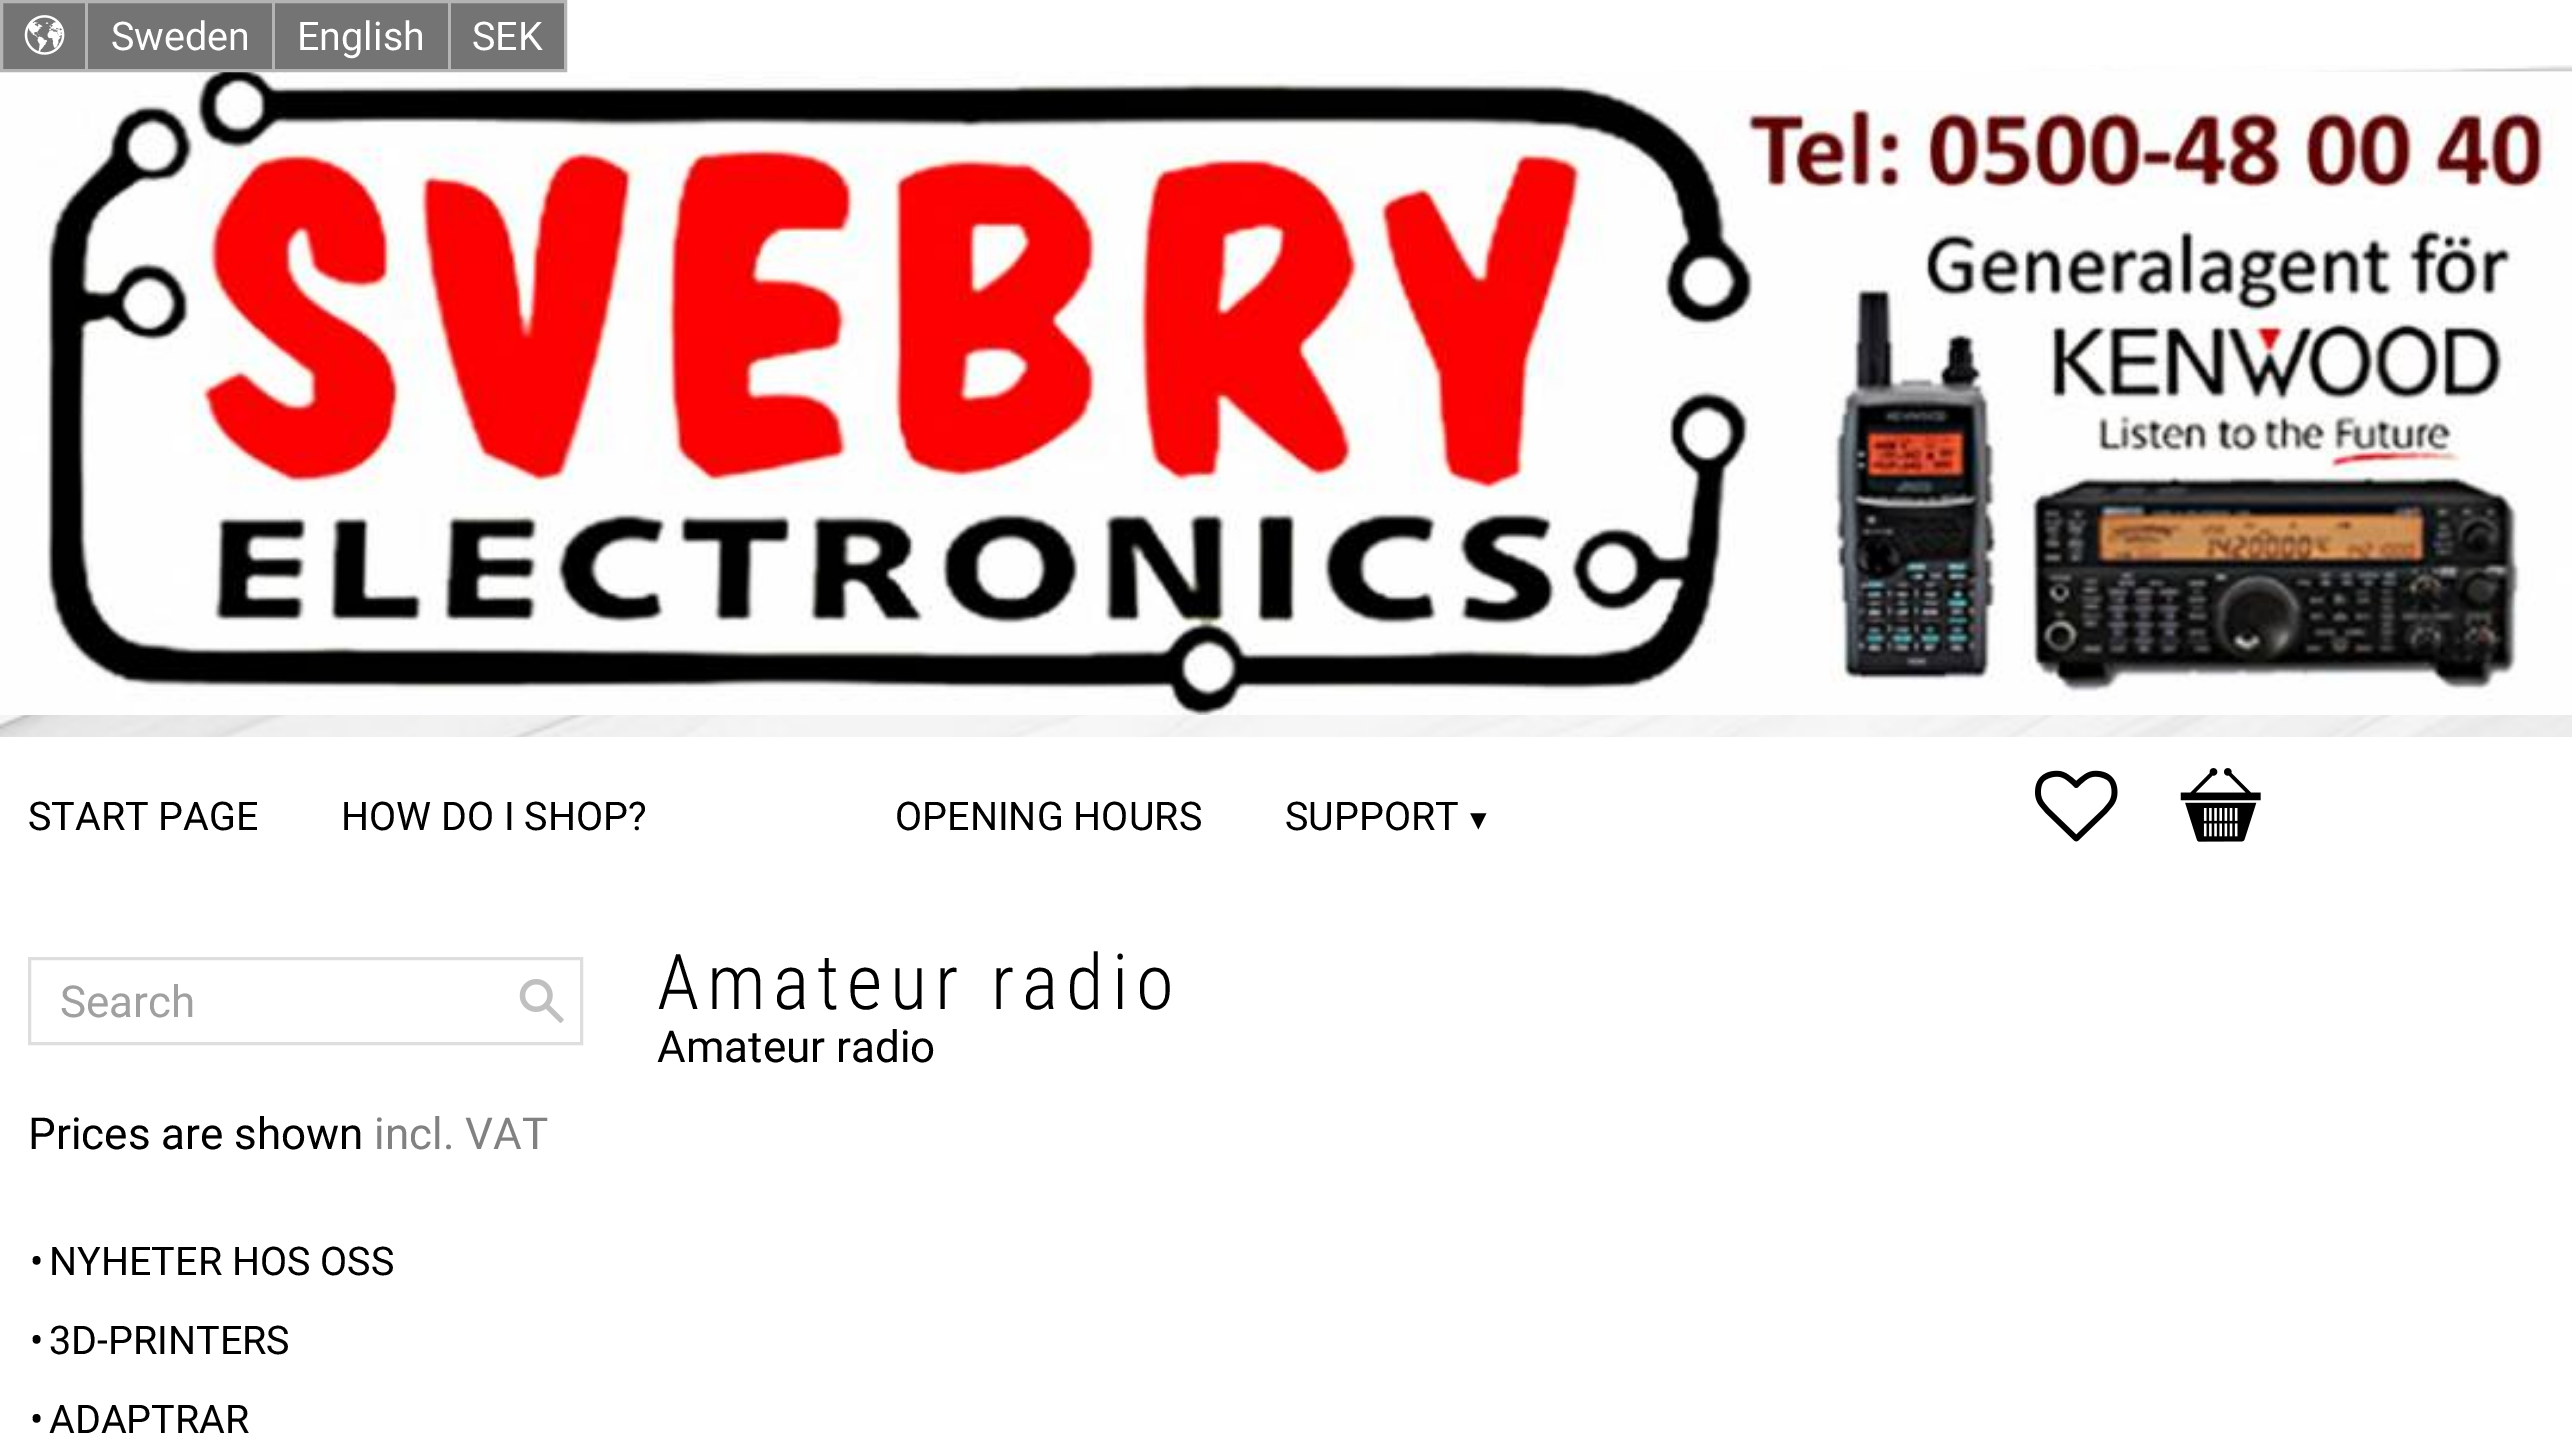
%!PS-Adobe-3.0
%%BoundingBox: 0 0 2572 1450
%%LanguageLevel: 3
%%Pages: 1
%%EndComments
%%BeginProlog
/drawimage { 5 dict begin { /h /w /y /x /name } { exch def } forall
  gsave x y translate w h scale
  w h 8 [w 0 0 h 0 0] name (r) file false 3 colorimage grestore end } def
%%EndProlog
%%BeginSetup
<< /PageSize [2572 1450] >> setpagedevice
%%EndSetup
%%Page: 1 1
0 1450 translate 1 -1 scale
4 setmiterlimit
1 setgray
0 0 2572 1450 rectfill
(images/1.raw) 0 65 2572 672 drawimage
(images/3.raw) 0 71 2572 644 drawimage
0.455 setgray
newpath 1.5 1.5 moveto 565.5 1.5 lineto 565.5 70.5 lineto 1.5 70.5 lineto closepath gsave fill grestore
0.706 setgray
3 setlinewidth
stroke
(images/2.raw) 24 15 41 40 drawimage
85 3 3 66 rectfill
272 3 3 66 rectfill
448 3 3 66 rectfill
(images/4.raw) 2035 770 83 72 drawimage
(images/5.raw) 2180 768 81 74 drawimage
0.871 setgray
29.5 958.5 552 85 rectstroke
(images/6.raw) 519 979 45 44 drawimage
/Roboto-Regular [39.5 0 0 -39.5 0 0] selectfont
1 setgray
111 50 moveto (Sweden) show
297 50 moveto (English) show
472 50 moveto (SEK) show
0 setgray
28 830 moveto (START PAGE) show
341 830 moveto (HOW DO I SHOP?) show
895 830 moveto (OPENING HOURS) show
1285 830 moveto (SUPPORT) show
/DejaVuSans-Regular [33 0 0 -33 0 0] selectfont
1470 830 moveto (▾) show
/Roboto-Regular [44 0 0 -44 0 0] selectfont
0.627 setgray
60 1017 moveto (Search) show
0 setgray
28 1149 moveto (Prices are shown) show
0.506 setgray
374 1149 moveto (incl. VAT) show
/Roboto-Regular [39.5 0 0 -39.5 0 0] selectfont
0 setgray
30 1275 moveto (•) show
49 1275 moveto (NYHETER HOS OSS) show
30 1354 moveto (•) show
49 1354 moveto (3D-PRINTERS) show
30 1433 moveto (•) show
49 1433 moveto (ADAPTRAR) show
/RobotoCondensed-Light [77 0 0 -77 0 0] selectfont
657 1009 moveto 7.75 0 (Amateur radio) ashow
/Roboto-Regular [44 0 0 -44 0 0] selectfont
657 1062 moveto (Amateur radio) show
showpage
%%EOF
